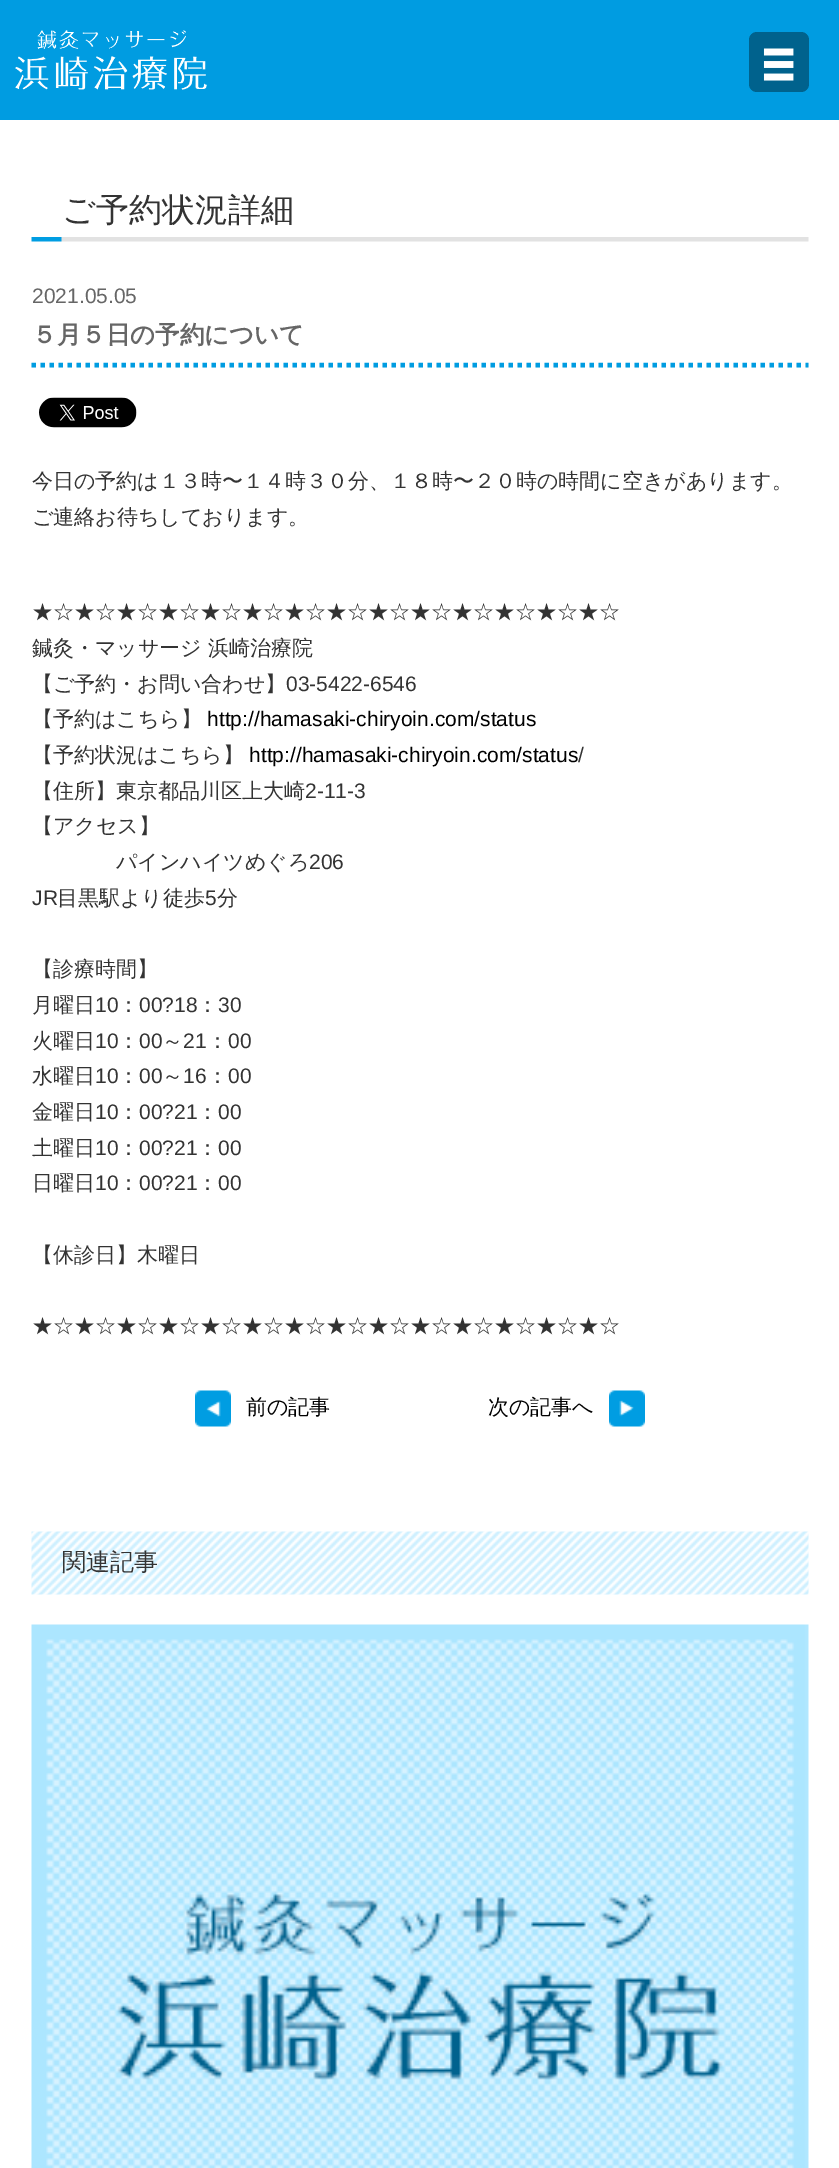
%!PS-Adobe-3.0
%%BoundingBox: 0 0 839 2168
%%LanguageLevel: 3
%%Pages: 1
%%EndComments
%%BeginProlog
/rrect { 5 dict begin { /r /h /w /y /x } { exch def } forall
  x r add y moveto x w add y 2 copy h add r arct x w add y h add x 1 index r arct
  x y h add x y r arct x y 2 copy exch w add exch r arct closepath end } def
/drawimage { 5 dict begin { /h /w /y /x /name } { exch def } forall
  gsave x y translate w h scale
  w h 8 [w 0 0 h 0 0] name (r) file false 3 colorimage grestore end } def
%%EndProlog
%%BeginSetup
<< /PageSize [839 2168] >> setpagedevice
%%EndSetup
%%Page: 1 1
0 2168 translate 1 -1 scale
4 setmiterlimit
1 setgray
0 0 839 2168 rectfill
0 0.612 0.882 setrgbcolor
0 0 839 120 rectfill
(images/1.raw) 15 30 192 60 drawimage
0 0.384 0.553 setrgbcolor
749 32 60 60 8 rrect fill
(images/2.raw) 763 48 31 33 drawimage
(images/3.raw) 31 237 778 5 drawimage
0 0.612 0.882 setrgbcolor
4.5 setlinewidth
[4.5 4.5] 0 setdash
newpath 31.5 365 moveto 808.5 365 lineto stroke
(images/4.raw) 39 397 98 31 drawimage
(images/5.raw) 195 1390 36 37 drawimage
(images/6.raw) 609 1390 36 37 drawimage
(images/7.raw) 31 1531 778 64 drawimage
(images/8.raw) 31 1624 778 544 drawimage
/WenQuanYiZenHei-Medium [33 0 0 -33 0 0] selectfont
0.2 setgray
62 221 moveto (ご予約状況詳細) show
/LiberationSans-Regular [21 0 0 -21 0 0] selectfont
0.4 setgray
32 303 moveto (2021.05.05) show
/WenQuanYiZenHei-Bold [24.5 0 0 -24.5 0 0] selectfont
32 343 moveto (５月５日の予約について) show
/WenQuanYiZenHei-Medium [21 0 0 -21 0 0] selectfont
0.2 setgray
32 488 moveto (今日の予約は１３時〜１４時３０分、１８時〜２０時の時間に空きがあります。) show
32 524 moveto (ご連絡お待ちしております。) show
32 619 moveto (★☆★☆★☆★☆★☆★☆★☆★☆★☆★☆★☆★☆★☆★☆) show
32 655 moveto (鍼灸・マッサージ 浜崎治療院) show
32 691 moveto (【ご予約・お問い合わせ】) show
/LiberationSans-Regular [21 0 0 -21 0 0] selectfont
286 691 moveto (03-5422-6546) show
/WenQuanYiZenHei-Medium [21 0 0 -21 0 0] selectfont
32 726 moveto (【予約はこちら】) show
/LiberationSans-Regular [21 0 0 -21 0 0] selectfont
0 setgray
207 726 moveto (http://hamasaki-chiryoin.com/status) show
/WenQuanYiZenHei-Medium [21 0 0 -21 0 0] selectfont
0.2 setgray
32 762 moveto (【予約状況はこちら】) show
/LiberationSans-Regular [21 0 0 -21 0 0] selectfont
0 setgray
249 762 moveto (http://hamasaki-chiryoin.com/status) show
0.2 setgray
578 762 moveto (/) show
/WenQuanYiZenHei-Medium [21 0 0 -21 0 0] selectfont
32 798 moveto (【住所】東京都品川区上大崎) show
/LiberationSans-Regular [21 0 0 -21 0 0] selectfont
305 798 moveto (2-11-3) show
/WenQuanYiZenHei-Medium [21 0 0 -21 0 0] selectfont
32 833 moveto (【アクセス】) show
116 869 moveto (パインハイツめぐろ) show
/LiberationSans-Regular [21 0 0 -21 0 0] selectfont
309 869 moveto (206) show
32 905 moveto (JR) show
/WenQuanYiZenHei-Medium [21 0 0 -21 0 0] selectfont
57 905 moveto (目黒駅より徒歩) show
/LiberationSans-Regular [21 0 0 -21 0 0] selectfont
205 905 moveto (5) show
/WenQuanYiZenHei-Medium [21 0 0 -21 0 0] selectfont
217 905 moveto (分) show
32 976 moveto (【診療時間】) show
32 1012 moveto (月曜日) show
/LiberationSans-Regular [21 0 0 -21 0 0] selectfont
95 1012 moveto (10) show
/WenQuanYiZenHei-Medium [21 0 0 -21 0 0] selectfont
118 1012 moveto (：) show
/LiberationSans-Regular [21 0 0 -21 0 0] selectfont
139 1012 moveto (00?18) show
/WenQuanYiZenHei-Medium [21 0 0 -21 0 0] selectfont
197 1012 moveto (：) show
/LiberationSans-Regular [21 0 0 -21 0 0] selectfont
218 1012 moveto (30) show
/WenQuanYiZenHei-Medium [21 0 0 -21 0 0] selectfont
32 1048 moveto (火曜日) show
/LiberationSans-Regular [21 0 0 -21 0 0] selectfont
95 1048 moveto (10) show
/WenQuanYiZenHei-Medium [21 0 0 -21 0 0] selectfont
118 1048 moveto (：) show
/LiberationSans-Regular [21 0 0 -21 0 0] selectfont
139 1048 moveto (00) show
/WenQuanYiZenHei-Medium [21 0 0 -21 0 0] selectfont
162 1048 moveto (～) show
/LiberationSans-Regular [21 0 0 -21 0 0] selectfont
183 1048 moveto (21) show
/WenQuanYiZenHei-Medium [21 0 0 -21 0 0] selectfont
207 1048 moveto (：) show
/LiberationSans-Regular [21 0 0 -21 0 0] selectfont
228 1048 moveto (00) show
/WenQuanYiZenHei-Medium [21 0 0 -21 0 0] selectfont
32 1083 moveto (水曜日) show
/LiberationSans-Regular [21 0 0 -21 0 0] selectfont
95 1083 moveto (10) show
/WenQuanYiZenHei-Medium [21 0 0 -21 0 0] selectfont
118 1083 moveto (：) show
/LiberationSans-Regular [21 0 0 -21 0 0] selectfont
139 1083 moveto (00) show
/WenQuanYiZenHei-Medium [21 0 0 -21 0 0] selectfont
162 1083 moveto (～) show
/LiberationSans-Regular [21 0 0 -21 0 0] selectfont
183 1083 moveto (16) show
/WenQuanYiZenHei-Medium [21 0 0 -21 0 0] selectfont
207 1083 moveto (：) show
/LiberationSans-Regular [21 0 0 -21 0 0] selectfont
228 1083 moveto (00) show
/WenQuanYiZenHei-Medium [21 0 0 -21 0 0] selectfont
32 1119 moveto (金曜日) show
/LiberationSans-Regular [21 0 0 -21 0 0] selectfont
95 1119 moveto (10) show
/WenQuanYiZenHei-Medium [21 0 0 -21 0 0] selectfont
118 1119 moveto (：) show
/LiberationSans-Regular [21 0 0 -21 0 0] selectfont
139 1119 moveto (00?21) show
/WenQuanYiZenHei-Medium [21 0 0 -21 0 0] selectfont
197 1119 moveto (：) show
/LiberationSans-Regular [21 0 0 -21 0 0] selectfont
218 1119 moveto (00) show
/WenQuanYiZenHei-Medium [21 0 0 -21 0 0] selectfont
32 1155 moveto (土曜日) show
/LiberationSans-Regular [21 0 0 -21 0 0] selectfont
95 1155 moveto (10) show
/WenQuanYiZenHei-Medium [21 0 0 -21 0 0] selectfont
118 1155 moveto (：) show
/LiberationSans-Regular [21 0 0 -21 0 0] selectfont
139 1155 moveto (00?21) show
/WenQuanYiZenHei-Medium [21 0 0 -21 0 0] selectfont
197 1155 moveto (：) show
/LiberationSans-Regular [21 0 0 -21 0 0] selectfont
218 1155 moveto (00) show
/WenQuanYiZenHei-Medium [21 0 0 -21 0 0] selectfont
32 1190 moveto (日曜日) show
/LiberationSans-Regular [21 0 0 -21 0 0] selectfont
95 1190 moveto (10) show
/WenQuanYiZenHei-Medium [21 0 0 -21 0 0] selectfont
118 1190 moveto (：) show
/LiberationSans-Regular [21 0 0 -21 0 0] selectfont
139 1190 moveto (00?21) show
/WenQuanYiZenHei-Medium [21 0 0 -21 0 0] selectfont
197 1190 moveto (：) show
/LiberationSans-Regular [21 0 0 -21 0 0] selectfont
218 1190 moveto (00) show
/WenQuanYiZenHei-Medium [21 0 0 -21 0 0] selectfont
32 1262 moveto (【休診日】木曜日) show
32 1333 moveto (★☆★☆★☆★☆★☆★☆★☆★☆★☆★☆★☆★☆★☆★☆) show
0 setgray
246 1414 moveto (前の記事) show
488 1414 moveto (次の記事へ) show
/WenQuanYiZenHei-Medium [24 0 0 -24 0 0] selectfont
0.2 setgray
62 1570 moveto (関連記事) show
showpage
%%EOF
